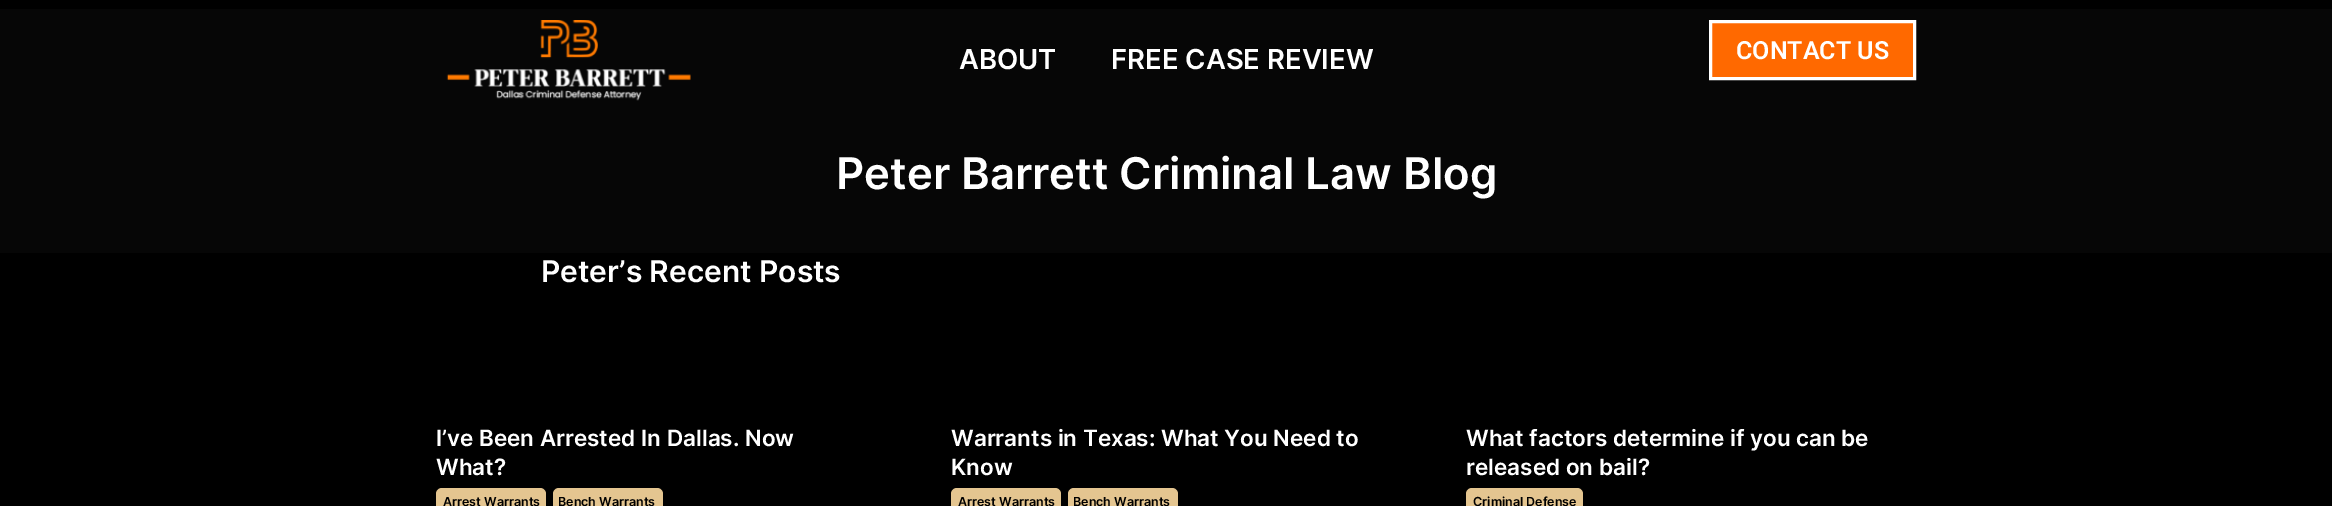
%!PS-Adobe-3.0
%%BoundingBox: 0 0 2332 506
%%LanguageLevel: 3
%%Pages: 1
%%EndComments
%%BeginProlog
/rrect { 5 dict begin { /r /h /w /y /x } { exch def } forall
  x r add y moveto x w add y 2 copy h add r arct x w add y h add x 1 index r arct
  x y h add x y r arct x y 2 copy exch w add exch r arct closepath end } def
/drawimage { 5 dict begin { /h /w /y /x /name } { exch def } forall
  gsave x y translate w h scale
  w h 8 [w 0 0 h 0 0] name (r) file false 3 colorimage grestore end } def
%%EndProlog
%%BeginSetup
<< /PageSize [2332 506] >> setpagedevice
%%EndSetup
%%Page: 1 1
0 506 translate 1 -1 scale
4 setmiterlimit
0 setgray
0 0 2332 506 rectfill
0.024 setgray
0 9 2332 244 rectfill
(images/1.raw) 446 20 245 81 drawimage
1 0.412 0 setrgbcolor
newpath 1710.5 21.5 moveto 1914.5 21.5 lineto 1914.5 78.5 lineto 1710.5 78.5 lineto closepath gsave fill grestore
1 setgray
3 setlinewidth
stroke
0.894 0.773 0.565 setrgbcolor
436 488 110 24 6 rrect fill
553 488 110 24 6 rrect fill
951 488 110 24 6 rrect fill
1068 488 110 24 6 rrect fill
1466 488 117 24 6 rrect fill
/Inter-SemiBold [27.5 0 0 -27.5 0 0] selectfont
1 setgray
959 69 moveto (ABOUT) show
1111 69 moveto (FREE CASE REVIEW) show
/Roboto-SemiBold [25 0 0 -25 0 0] selectfont
1736 59 moveto (CONTACT US) show
/Inter-SemiBold [43.75 0 0 -43.75 0 0] selectfont
836 189 moveto (Peter Barrett Criminal Law Blog) show
/Inter-SemiBold [30 0 0 -30 0 0] selectfont
541 282 moveto (Peter’s Recent Posts) show
/Inter-SemiBold [22.5 0 0 -22.5 0 0] selectfont
436 446 moveto (I’ve Been Arrested In Dallas. Now) show
436 475 moveto (What?) show
/Inter-SemiBold [12.5 0 0 -12.5 0 0] selectfont
0 setgray
443 506 moveto (Arrest Warrants) show
558 506 moveto (Bench Warrants) show
/Inter-SemiBold [22.5 0 0 -22.5 0 0] selectfont
1 setgray
951 446 moveto (Warrants in Texas: What You Need to) show
951 475 moveto (Know) show
/Inter-SemiBold [12.5 0 0 -12.5 0 0] selectfont
0 setgray
958 506 moveto (Arrest Warrants) show
1073 506 moveto (Bench Warrants) show
/Inter-SemiBold [22.5 0 0 -22.5 0 0] selectfont
1 setgray
1466 446 moveto (What factors determine if you can be) show
1466 475 moveto (released on bail?) show
/Inter-SemiBold [12.5 0 0 -12.5 0 0] selectfont
0 setgray
1473 506 moveto (Criminal Defense) show
showpage
%%EOF
